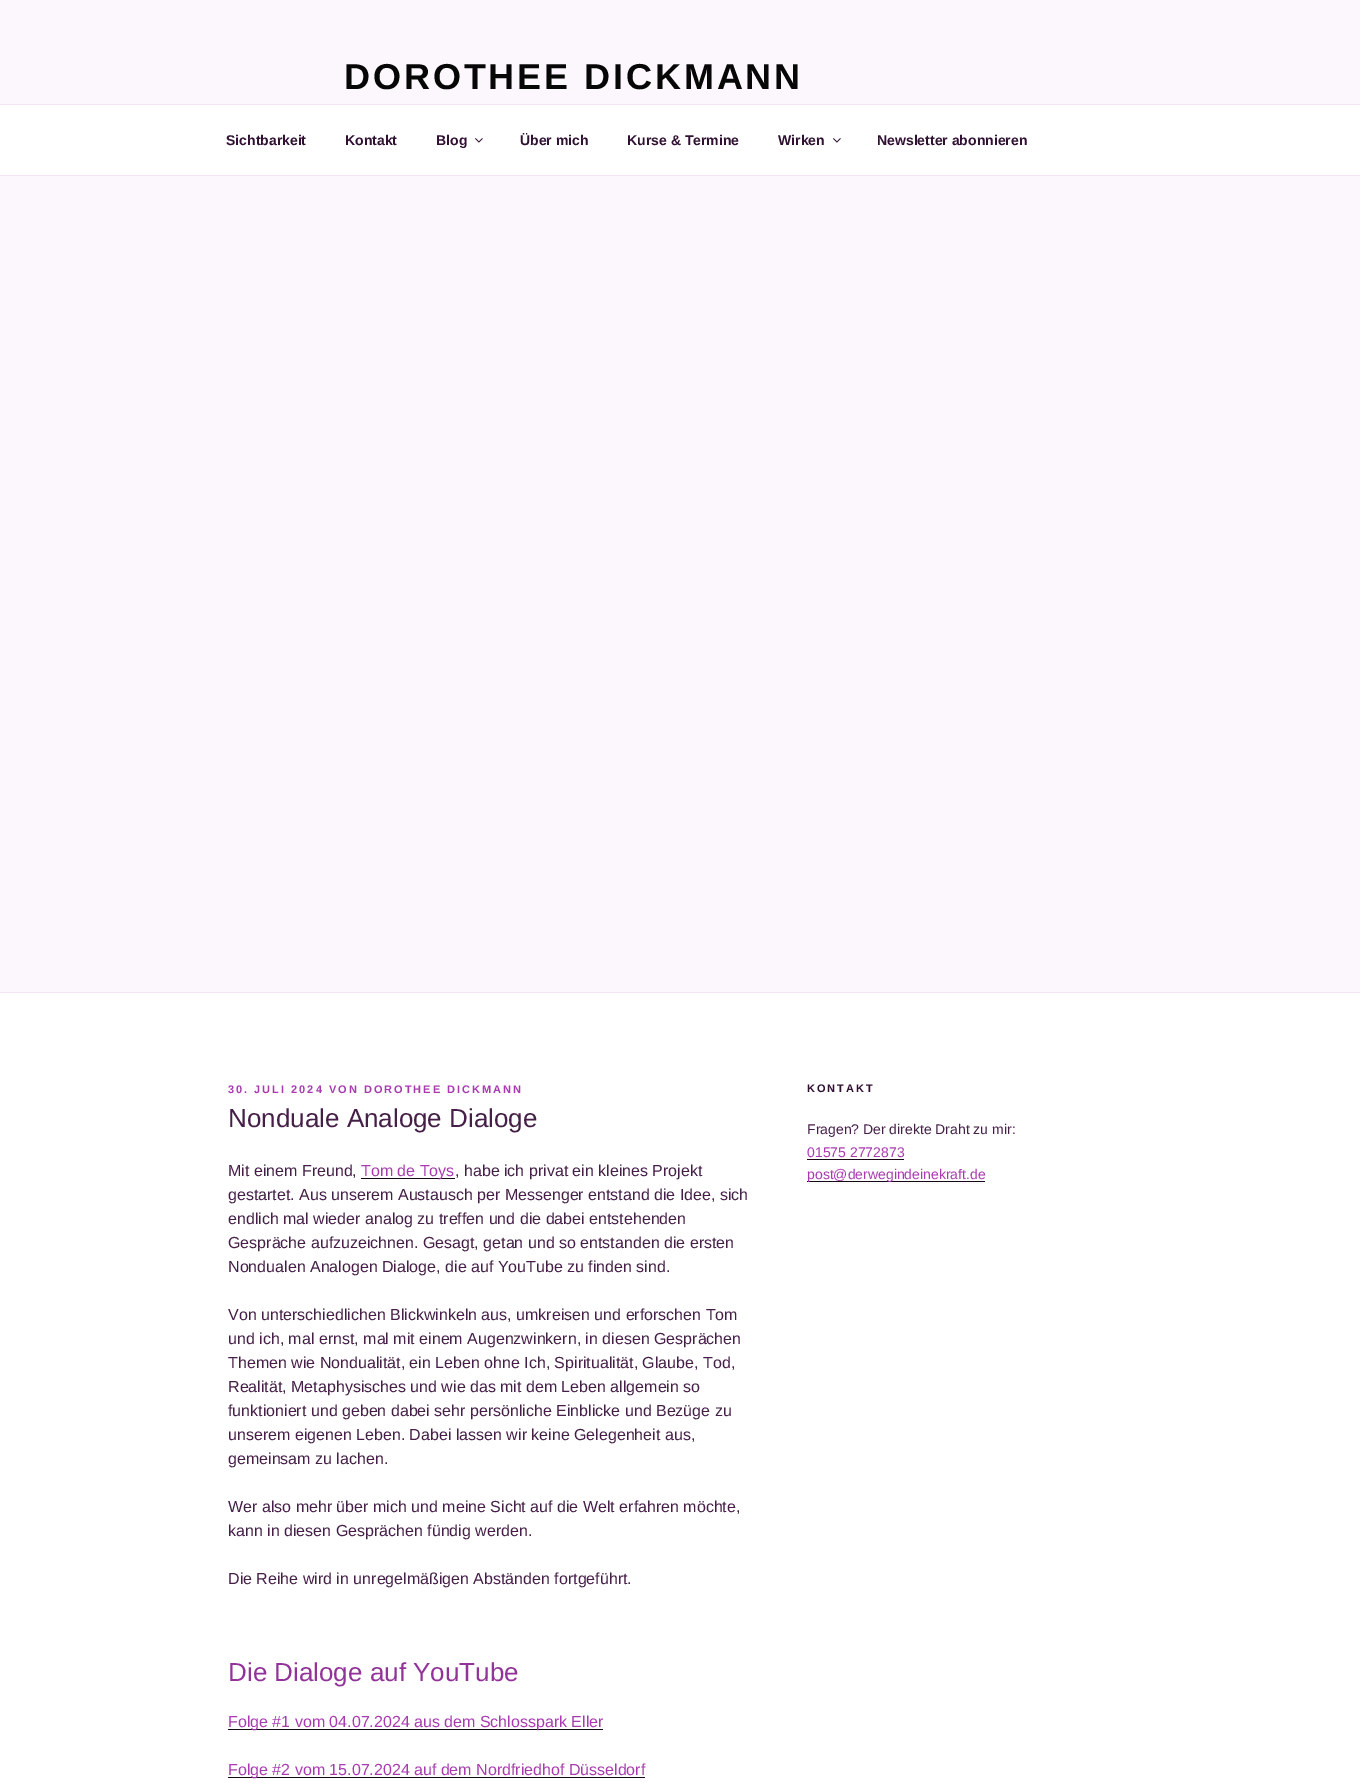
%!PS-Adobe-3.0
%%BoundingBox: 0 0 1360 1783
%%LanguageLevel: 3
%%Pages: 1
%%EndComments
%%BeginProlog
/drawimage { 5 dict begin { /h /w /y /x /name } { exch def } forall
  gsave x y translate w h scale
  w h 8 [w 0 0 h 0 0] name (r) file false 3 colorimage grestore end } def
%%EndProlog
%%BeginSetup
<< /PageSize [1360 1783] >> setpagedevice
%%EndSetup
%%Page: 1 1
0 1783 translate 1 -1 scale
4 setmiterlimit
1 setgray
0 0 1360 1783 rectfill
0.988 0.969 0.988 setrgbcolor
0 0 1360 104 rectfill
0.961 0.894 0.965 setrgbcolor
0 104 1360 1 rectfill
0 175 1360 1 rectfill
(images/1.raw) 475 138 8 5 drawimage
(images/1.raw) 833 138 8 5 drawimage
0.988 0.969 0.988 setrgbcolor
0 176 1360 816 rectfill
0.961 0.894 0.965 setrgbcolor
0 992 1360 1 rectfill
0.086 0.031 0.09 setrgbcolor
361 1178 94 1 rectfill
228 1729 375 1 rectfill
228 1777 417 1 rectfill
807 1159 97 1 rectfill
807 1181 178 1 rectfill
/LiberationSans-Bold [36 0 0 -36 0 0] selectfont
0.027 setgray
344 89 moveto 2.9 0 (DOROTHEE DICKMANN) ashow
/LiberationSans-Bold [14 0 0 -14 0 0] selectfont
0.188 0.067 0.196 setrgbcolor
226 145 moveto (Sichtbarkeit) show
345 145 moveto (Kontakt) show
436 145 moveto (Blog) show
520 145 moveto (Über mich) show
627 145 moveto (Kurse & Termine) show
778 145 moveto (Wirken) show
877 145 moveto (Newsletter abonnieren) show
/LiberationSans-Bold [11 0 0 -11 0 0] selectfont
0.659 0.231 0.69 setrgbcolor
228 1093 moveto 2 0 (30. JULI 2024 VON DOROTHEE DICKMANN) ashow
/LiberationSans-Regular [26 0 0 -26 0 0] selectfont
0.271 0.122 0.278 setrgbcolor
228 1127 moveto (Nonduale Analoge Dialoge) show
/LiberationSans-Regular [16 0 0 -16 0 0] selectfont
228 1176 moveto (Mit einem Freund,) show
0.659 0.231 0.69 setrgbcolor
361 1176 moveto (Tom de Toys) show
0.271 0.122 0.278 setrgbcolor
455 1176 moveto (, habe ich privat ein kleines Projekt) show
228 1200 moveto (gestartet. Aus unserem Austausch per Messenger entstand die Idee, sich) show
228 1224 moveto (endlich mal wieder analog zu treffen und die dabei entstehenden) show
228 1248 moveto (Gespräche aufzuzeichnen. Gesagt, getan und so entstanden die ersten) show
228 1272 moveto (Nondualen Analogen Dialoge, die auf YouTube zu finden sind.) show
228 1320 moveto (Von unterschiedlichen Blickwinkeln aus, umkreisen und erforschen Tom) show
228 1344 moveto (und ich, mal ernst, mal mit einem Augenzwinkern, in diesen Gesprächen) show
228 1368 moveto (Themen wie Nondualität, ein Leben ohne Ich, Spiritualität, Glaube, Tod,) show
228 1392 moveto (Realität, Metaphysisches und wie das mit dem Leben allgemein so) show
228 1416 moveto (funktioniert und geben dabei sehr persönliche Einblicke und Bezüge zu) show
228 1440 moveto (unserem eigenen Leben. Dabei lassen wir keine Gelegenheit aus,) show
228 1464 moveto (gemeinsam zu lachen.) show
228 1512 moveto (Wer also mehr über mich und meine Sicht auf die Welt erfahren möchte,) show
228 1536 moveto (kann in diesen Gesprächen fündig werden.) show
228 1584 moveto (Die Reihe wird in unregelmäßigen Abständen fortgeführt.) show
/LiberationSans-Regular [26 0 0 -26 0 0] selectfont
0.573 0.2 0.6 setrgbcolor
228 1681 moveto (Die Dialoge auf YouTube) show
/LiberationSans-Regular [16 0 0 -16 0 0] selectfont
0.659 0.231 0.69 setrgbcolor
228 1727 moveto (Folge #1 vom 04.07.2024 aus dem Schlosspark Eller) show
228 1775 moveto (Folge #2 vom 15.07.2024 auf dem Nordfriedhof Düsseldorf) show
/LiberationSans-Bold [11 0 0 -11 0 0] selectfont
0.188 0.067 0.196 setrgbcolor
807 1092 moveto 2 0 (KONTAKT) ashow
/LiberationSans-Regular [14 0 0 -14 0 0] selectfont
0.271 0.122 0.278 setrgbcolor
807 1134 moveto (Fragen? Der direkte Draht zu mir:) show
0.659 0.231 0.69 setrgbcolor
807 1157 moveto (01575 2772873) show
807 1179 moveto (post@derwegindeinekraft.de) show
showpage
%%EOF
